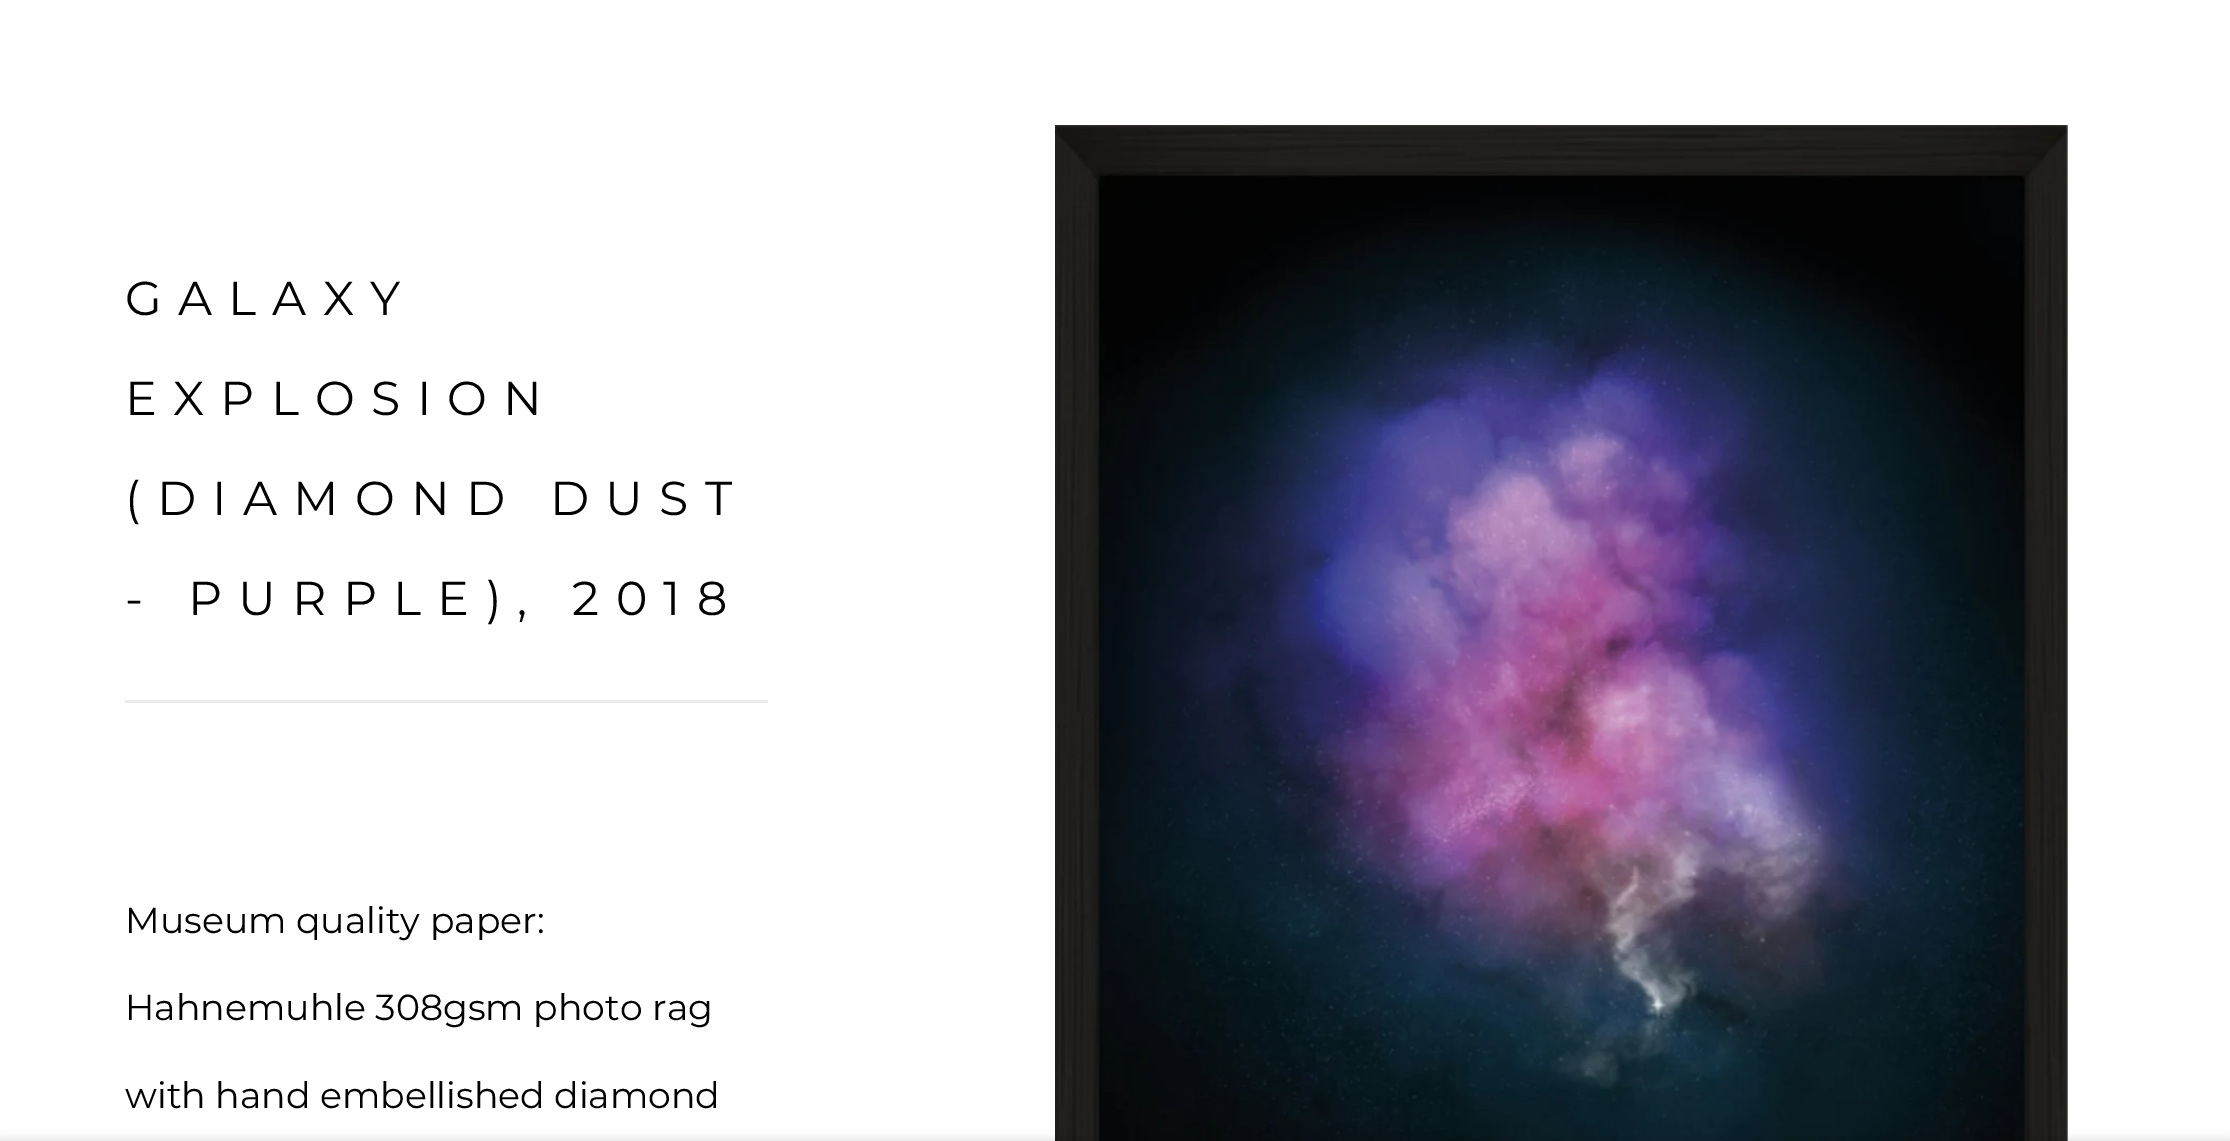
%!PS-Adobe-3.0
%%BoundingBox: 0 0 2230 1141
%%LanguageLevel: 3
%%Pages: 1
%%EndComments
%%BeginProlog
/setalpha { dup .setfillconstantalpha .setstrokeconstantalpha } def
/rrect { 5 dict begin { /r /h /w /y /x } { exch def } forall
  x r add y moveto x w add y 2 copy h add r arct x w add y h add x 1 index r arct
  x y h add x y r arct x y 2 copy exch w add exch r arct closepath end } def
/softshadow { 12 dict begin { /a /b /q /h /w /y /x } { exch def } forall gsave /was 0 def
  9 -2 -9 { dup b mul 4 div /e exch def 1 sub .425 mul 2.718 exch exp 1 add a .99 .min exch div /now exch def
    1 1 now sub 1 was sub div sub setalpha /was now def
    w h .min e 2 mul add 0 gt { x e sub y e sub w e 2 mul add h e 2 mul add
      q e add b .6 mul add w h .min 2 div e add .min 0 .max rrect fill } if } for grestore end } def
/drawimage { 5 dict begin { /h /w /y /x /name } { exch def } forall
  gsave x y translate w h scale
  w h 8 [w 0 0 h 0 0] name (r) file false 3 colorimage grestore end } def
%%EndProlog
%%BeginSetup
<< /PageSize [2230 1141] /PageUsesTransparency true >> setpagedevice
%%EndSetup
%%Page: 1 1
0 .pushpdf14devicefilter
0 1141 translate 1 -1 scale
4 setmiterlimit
1 setgray
0 0 2230 1141 rectfill
0.922 setgray
125 700 643 3 rectfill
(images/1.raw) 1055 125 1013 1016 drawimage
0 setgray
0 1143 2230 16 0 6 0.23 softshadow
/Montserrat-Regular [47.5 0 0 -47.5 0 0] selectfont
125 315 moveto 16.25 0 (GALAXY) ashow
125 415 moveto 16.25 0 (EXPLOSION) ashow
125 515 moveto 16.25 0 (\(DIAMOND DUST) ashow
125 615 moveto 16.25 0 (- PURPLE\), 2018) ashow
/Montserrat-Regular [36.25 0 0 -36.25 0 0] selectfont
125 933 moveto (Museum quality paper:) show
125 1020 moveto (Hahnemuhle 308gsm photo rag) show
125 1108 moveto (with hand embellished diamond) show
.poppdf14devicefilter showpage
%%EOF
